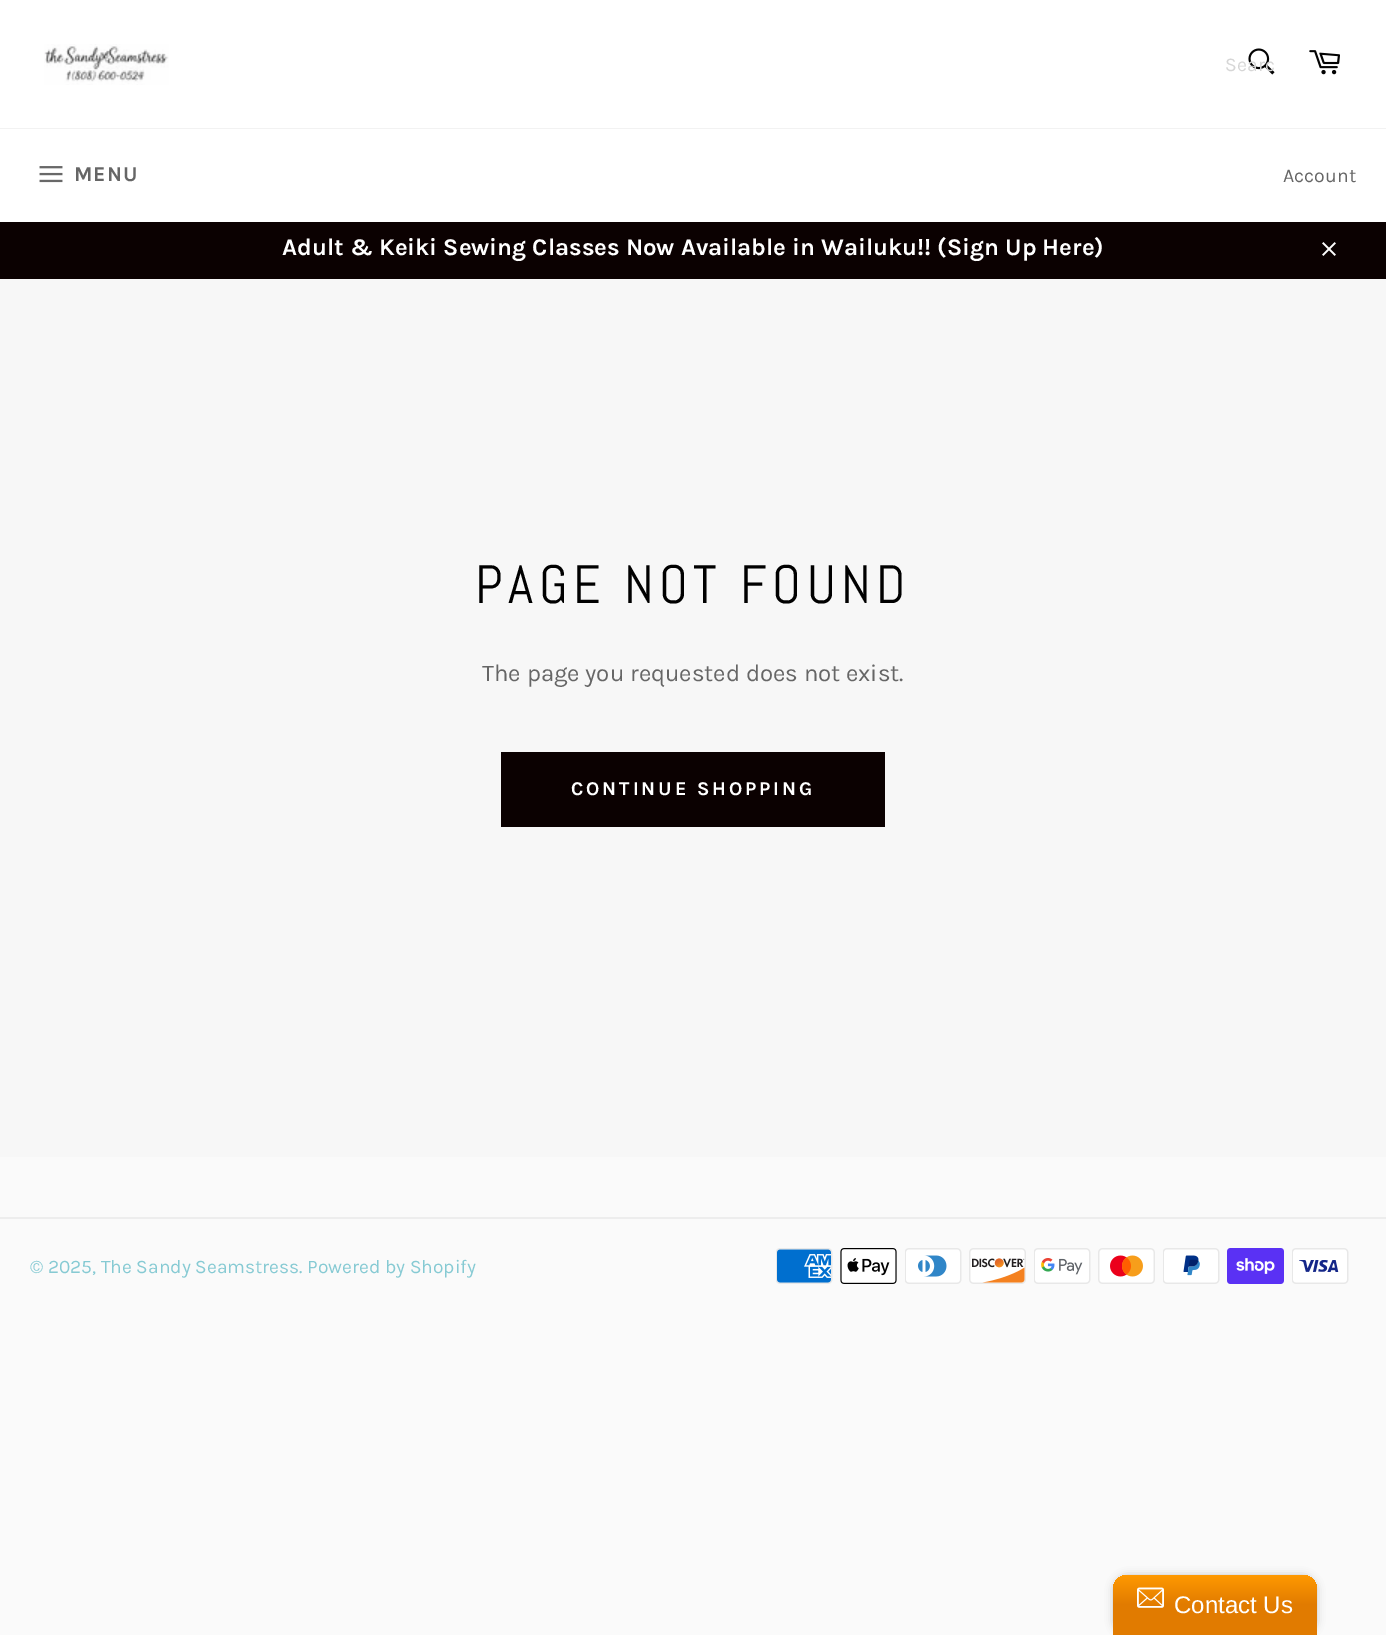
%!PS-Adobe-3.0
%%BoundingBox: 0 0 1386 1635
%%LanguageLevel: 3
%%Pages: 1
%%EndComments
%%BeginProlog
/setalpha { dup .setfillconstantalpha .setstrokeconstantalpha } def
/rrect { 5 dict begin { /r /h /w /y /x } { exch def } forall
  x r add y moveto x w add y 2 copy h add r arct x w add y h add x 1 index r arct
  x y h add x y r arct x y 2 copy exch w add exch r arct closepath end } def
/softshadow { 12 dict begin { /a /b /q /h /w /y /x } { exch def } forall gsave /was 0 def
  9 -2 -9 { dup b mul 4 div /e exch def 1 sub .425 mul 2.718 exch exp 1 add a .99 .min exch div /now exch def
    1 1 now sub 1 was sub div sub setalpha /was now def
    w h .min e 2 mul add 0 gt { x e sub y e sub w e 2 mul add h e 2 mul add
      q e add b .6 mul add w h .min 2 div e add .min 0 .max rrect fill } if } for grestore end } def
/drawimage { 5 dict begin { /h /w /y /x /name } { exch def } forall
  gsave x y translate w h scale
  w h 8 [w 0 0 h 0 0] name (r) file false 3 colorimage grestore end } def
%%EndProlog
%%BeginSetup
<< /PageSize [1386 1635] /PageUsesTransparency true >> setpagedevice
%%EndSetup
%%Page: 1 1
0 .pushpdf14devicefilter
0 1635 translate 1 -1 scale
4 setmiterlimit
0.98 setgray
0 0 1386 1635 rectfill
0.969 setgray
0 279 1386 878 rectfill
1 setgray
0 0 1386 128 rectfill
(images/1.raw) 44 44 125 41 drawimage
(images/2.raw) 1248 48 27 27 drawimage
(images/3.raw) 1309 50 31 25 drawimage
0.949 setgray
0 128 1386 1 rectfill
1 setgray
0 129 1386 93 rectfill
(images/4.raw) 39 166 24 17 drawimage
0.043 0.004 0.004 setrgbcolor
0 222 1386 57 rectfill
(images/5.raw) 1322 242 14 14 drawimage
501 752 384 75 rectfill
0.929 setgray
0 1217 1386 2 rectfill
(images/6.raw) 776 1248 57 36 drawimage
(images/7.raw) 840 1248 57 36 drawimage
(images/8.raw) 905 1248 57 36 drawimage
(images/9.raw) 969 1248 57 36 drawimage
(images/10.raw) 1034 1248 57 36 drawimage
(images/11.raw) 1098 1248 57 36 drawimage
(images/12.raw) 1163 1248 57 36 drawimage
(images/13.raw) 1227 1248 57 36 drawimage
(images/14.raw) 1292 1248 57 36 drawimage
0 setgray
1113 1575 204 60 15 4 0.2 softshadow
gsave newpath 1128 1575 moveto 1302 1575 lineto 1310.5 1575 1317 1581.5 1317 1590 curveto 1317 1635 lineto 1113 1635 lineto 1113 1590 lineto 1113 1581.5 1119.5 1575 1128 1575 curveto closepath clip newpath
<< /ShadingType 2 /ColorSpace /DeviceRGB /Coords [1215 1575 1215 1635] /Extend [true true] /Function << /FunctionType 3 /Domain [0 1] /Functions [<< /FunctionType 2 /Domain [0 1] /C0 [1 0.6 0] /C1 [0.882 0.482 0] /N 1 >> << /FunctionType 2 /Domain [0 1] /C0 [0.882 0.482 0] /C1 [0.882 0.482 0] /N 1 >>] /Bounds [0.5] /Encode [0 1 0 1] >> >> shfill grestore
(images/15.raw) 1137 1587 27 21 drawimage
/Karla-Regular [19.5 0 0 -19.5 0 0] selectfont
0.839 setgray
1225 71 moveto (Searc) show
/Karla-Bold [21 0 0 -21 0 0] selectfont
0.4 setgray
74 181 moveto 1 0 (MENU) ashow
/Karla-Regular [19.5 0 0 -19.5 0 0] selectfont
1283 182 moveto (Account) show
/Karla-Bold [24 0 0 -24 0 0] selectfont
1 setgray
282 255 moveto (Adult & Keiki Sewing Classes Now Available in Wailuku!! \(Sign Up Here\)) show
/Abel-Regular [54 0 0 -54 0 0] selectfont
0 setgray
475 603 moveto 5.4 0 (PAGE NOT FOUND) ashow
/Karla-Regular [24 0 0 -24 0 0] selectfont
0.4 setgray
482 681 moveto (The page you requested does not exist.) show
/Karla-Bold [19.5 0 0 -19.5 0 0] selectfont
1 setgray
571 795 moveto 2.9 0 (CONTINUE SHOPPING) ashow
/Karla-Regular [19.2 0 0 -19.2 0 0] selectfont
0.525 0.792 0.827 setrgbcolor
30 1273 moveto (© 2025, The Sandy Seamstress. Powered by Shopify) show
/LiberationSans-Regular [24 0 0 -24 0 0] selectfont
1 setgray
1174 1613 moveto (Contact Us) show
.poppdf14devicefilter showpage
%%EOF
